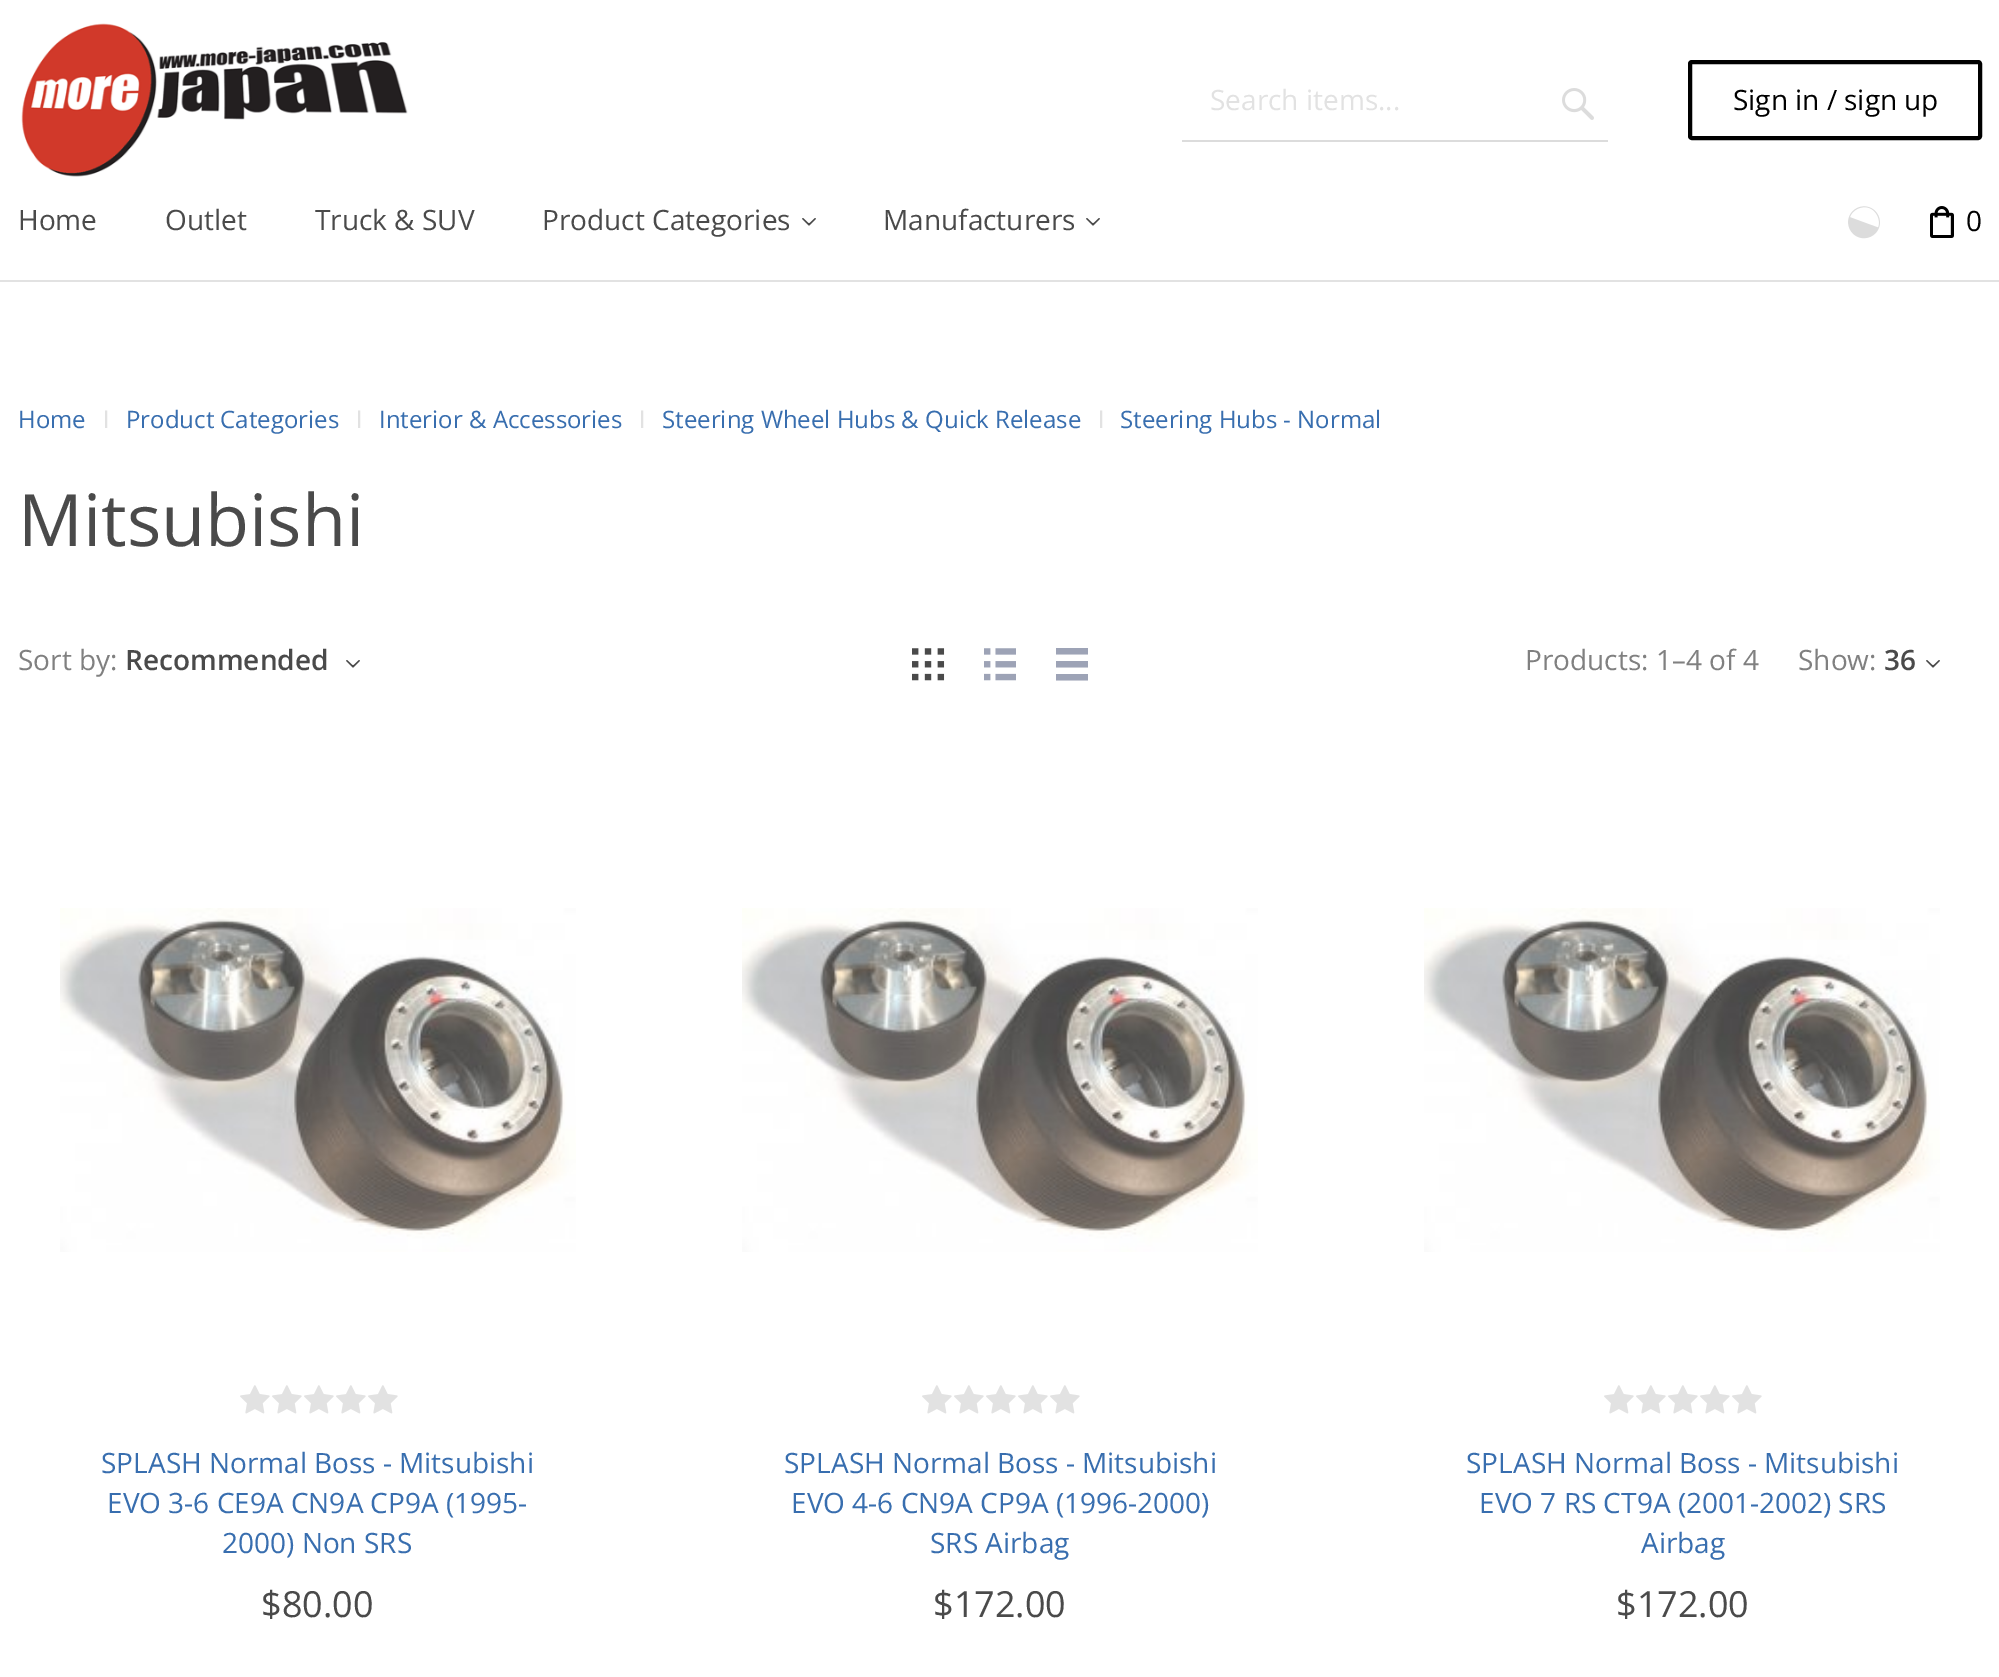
%!PS-Adobe-3.0
%%BoundingBox: 0 0 1999 1677
%%LanguageLevel: 3
%%Pages: 1
%%EndComments
%%BeginProlog
/rrect { 5 dict begin { /r /h /w /y /x } { exch def } forall
  x r add y moveto x w add y 2 copy h add r arct x w add y h add x 1 index r arct
  x y h add x y r arct x y 2 copy exch w add exch r arct closepath end } def
/drawimage { 5 dict begin { /h /w /y /x /name } { exch def } forall
  gsave x y translate w h scale
  w h 8 [w 0 0 h 0 0] name (r) file false 3 colorimage grestore end } def
%%EndProlog
%%BeginSetup
<< /PageSize [1999 1677] >> setpagedevice
%%EndSetup
%%Page: 1 1
0 1677 translate 1 -1 scale
4 setmiterlimit
1 setgray
0 0 1999 1677 rectfill
0.886 setgray
0 280 1999 2 rectfill
(images/1.raw) 21 23 387 154 drawimage
0.863 setgray
1182 140 426 2 rectfill
(images/2.raw) 1562 88 32 32 drawimage
0 setgray
4 setlinewidth
1690 62 290 76 2 rrect stroke
(images/3.raw) 802 218 14 8 drawimage
(images/3.raw) 1086 218 14 8 drawimage
(images/4.raw) 1848 206 32 33 drawimage
(images/5.raw) 1930 206 24 32 drawimage
(images/3.raw) 346 660 14 8 drawimage
(images/6.raw) 912 648 33 33 drawimage
(images/7.raw) 984 648 32 33 drawimage
0.616 0.639 0.714 setrgbcolor
newpath 1056 648 moveto 1088 648 lineto 1088 654.5 lineto 1056 654.5 lineto closepath 1056 661 moveto 1088 661 lineto 1088 667.5 lineto 1056 667.5 lineto closepath 1056 674 moveto 1088 674 lineto 1088 680.5 lineto 1056 680.5 lineto closepath fill
(images/3.raw) 1926 660 14 8 drawimage
(images/8.raw) 60 908 516 344 drawimage
(images/9.raw) 240 1385 30 29 drawimage
(images/9.raw) 272 1385 30 29 drawimage
(images/9.raw) 304 1385 30 29 drawimage
(images/9.raw) 336 1385 30 29 drawimage
(images/9.raw) 368 1385 30 29 drawimage
(images/10.raw) 742 908 516 344 drawimage
(images/9.raw) 922 1385 30 29 drawimage
(images/9.raw) 954 1385 30 29 drawimage
(images/9.raw) 986 1385 30 29 drawimage
(images/9.raw) 1018 1385 30 29 drawimage
(images/9.raw) 1050 1385 30 29 drawimage
(images/11.raw) 1424 908 516 344 drawimage
(images/9.raw) 1604 1385 30 29 drawimage
(images/9.raw) 1636 1385 30 29 drawimage
(images/9.raw) 1668 1385 30 29 drawimage
(images/9.raw) 1700 1385 30 29 drawimage
(images/9.raw) 1732 1385 30 29 drawimage
/OpenSans-Regular [28 0 0 -28 0 0] selectfont
0.886 setgray
1210 110 moveto (Search items...) show
0 setgray
1733 110 moveto (Sign in / sign up) show
0.29 setgray
18 230 moveto (Home) show
165 230 moveto (Outlet) show
315 230 moveto (Truck & SUV) show
542 230 moveto (Product Categories) show
883 230 moveto (Manufacturers) show
0 setgray
1966 231 moveto (0) show
/OpenSans-Regular [24 0 0 -24 0 0] selectfont
0.22 0.431 0.686 setrgbcolor
18 428 moveto (Home) show
/LiberationSans-Regular [24 0 0 -24 0 0] selectfont
0.886 setgray
103 428 moveto (ǀ) show
/OpenSans-Regular [24 0 0 -24 0 0] selectfont
0.22 0.431 0.686 setrgbcolor
126 428 moveto (Product Categories) show
/LiberationSans-Regular [24 0 0 -24 0 0] selectfont
0.886 setgray
356 428 moveto (ǀ) show
/OpenSans-Regular [24 0 0 -24 0 0] selectfont
0.22 0.431 0.686 setrgbcolor
379 428 moveto (Interior & Accessories) show
/LiberationSans-Regular [24 0 0 -24 0 0] selectfont
0.886 setgray
639 428 moveto (ǀ) show
/OpenSans-Regular [24 0 0 -24 0 0] selectfont
0.22 0.431 0.686 setrgbcolor
662 428 moveto (Steering Wheel Hubs & Quick Release) show
/LiberationSans-Regular [24 0 0 -24 0 0] selectfont
0.886 setgray
1098 428 moveto (ǀ) show
/OpenSans-Regular [24 0 0 -24 0 0] selectfont
0.22 0.431 0.686 setrgbcolor
1120 428 moveto (Steering Hubs - Normal) show
/OpenSans-Regular [72 0 0 -72 0 0] selectfont
0.29 setgray
18 546 moveto (Mitsubishi) show
/OpenSans-Regular [28 0 0 -28 0 0] selectfont
0.502 setgray
18 670 moveto (Sort by:) show
/OpenSans-SemiBold [28 0 0 -28 0 0] selectfont
0.29 setgray
125 670 moveto (Recommended) show
/OpenSans-Regular [28 0 0 -28 0 0] selectfont
0.502 setgray
1525 670 moveto (Products: 1–4 of 4) show
1798 670 moveto (Show:) show
/OpenSans-SemiBold [28 0 0 -28 0 0] selectfont
0.29 setgray
1884 670 moveto (36) show
/OpenSans-Regular [28 0 0 -28 0 0] selectfont
0.22 0.431 0.686 setrgbcolor
101 1473 moveto (SPLASH Normal Boss - Mitsubishi) show
107 1513 moveto (EVO 3-6 CE9A CN9A CP9A \(1995-) show
222 1553 moveto (2000\) Non SRS) show
/OpenSans-Regular [36 0 0 -36 0 0] selectfont
0.29 setgray
261 1617 moveto ($80.00) show
/OpenSans-Regular [28 0 0 -28 0 0] selectfont
0.22 0.431 0.686 setrgbcolor
784 1473 moveto (SPLASH Normal Boss - Mitsubishi) show
791 1513 moveto (EVO 4-6 CN9A CP9A \(1996-2000\)) show
930 1553 moveto (SRS Airbag) show
/OpenSans-Regular [36 0 0 -36 0 0] selectfont
0.29 setgray
933 1617 moveto ($172.00) show
/OpenSans-Regular [28 0 0 -28 0 0] selectfont
0.22 0.431 0.686 setrgbcolor
1466 1473 moveto (SPLASH Normal Boss - Mitsubishi) show
1479 1513 moveto (EVO 7 RS CT9A \(2001-2002\) SRS) show
1641 1553 moveto (Airbag) show
/OpenSans-Regular [36 0 0 -36 0 0] selectfont
0.29 setgray
1616 1617 moveto ($172.00) show
showpage
%%EOF
